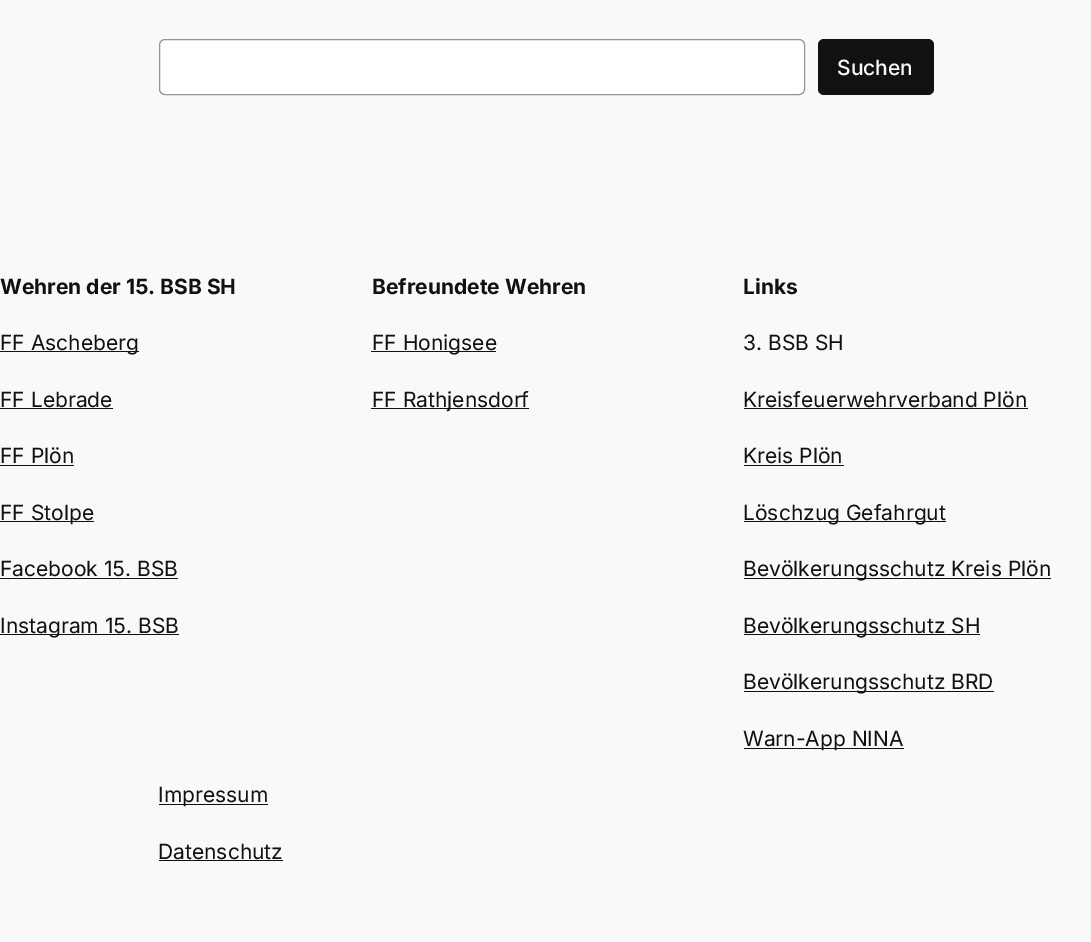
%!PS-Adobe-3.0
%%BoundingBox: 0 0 1091 942
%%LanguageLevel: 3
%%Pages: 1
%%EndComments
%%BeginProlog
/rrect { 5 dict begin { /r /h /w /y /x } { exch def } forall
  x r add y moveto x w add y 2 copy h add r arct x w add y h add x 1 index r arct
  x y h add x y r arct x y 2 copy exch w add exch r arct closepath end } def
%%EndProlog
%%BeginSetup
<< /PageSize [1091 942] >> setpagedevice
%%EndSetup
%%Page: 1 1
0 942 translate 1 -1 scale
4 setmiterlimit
0.976 setgray
0 0 1091 942 rectfill
1 setgray
159.5 39.5 645 55 5.5 rrect gsave fill grestore
0.58 setgray
stroke
0.067 setgray
818 39 116 56 6 rrect fill
0 351 139 1 rectfill
0 408 113 1 rectfill
0 465 74 1 rectfill
0 521 94 1 rectfill
0 578 178 1 rectfill
0 634 179 1 rectfill
371 351 125 1 rectfill
371 408 158 1 rectfill
744 408 284 1 rectfill
744 465 100 1 rectfill
744 521 202 1 rectfill
744 578 307 1 rectfill
744 634 236 1 rectfill
744 691 250 1 rectfill
744 748 160 1 rectfill
159 804 109 1 rectfill
159 860 124 1 rectfill
/Inter-Medium [21 0 0 -21 0 0] selectfont
0.976 setgray
837 75 moveto (Suchen) show
/Inter-Bold [21 0 0 -21 0 0] selectfont
0.067 setgray
0 294 moveto (Wehren der 15. BSB SH) show
/Inter-Regular [21 0 0 -21 0 0] selectfont
0 350 moveto (FF Ascheberg) show
0 407 moveto (FF Lebrade) show
0 463 moveto (FF Plön) show
0 520 moveto (FF Stolpe) show
0 576 moveto (Facebook 15. BSB) show
0 633 moveto (Instagram 15. BSB) show
/Inter-Bold [21 0 0 -21 0 0] selectfont
372 294 moveto (Befreundete Wehren) show
/Inter-Regular [21 0 0 -21 0 0] selectfont
372 350 moveto (FF Honigsee) show
372 407 moveto (FF Rathjensdorf) show
/Inter-Bold [21 0 0 -21 0 0] selectfont
743 294 moveto (Links) show
/Inter-Regular [21 0 0 -21 0 0] selectfont
743 350 moveto (3. BSB SH) show
743 407 moveto (Kreisfeuerwehrverband Plön) show
743 463 moveto (Kreis Plön) show
743 520 moveto (Löschzug Gefahrgut) show
743 576 moveto (Bevölkerungsschutz Kreis Plön) show
743 633 moveto (Bevölkerungsschutz SH) show
743 689 moveto (Bevölkerungsschutz BRD) show
743 746 moveto (Warn-App NINA) show
158 802 moveto (Impressum) show
158 859 moveto (Datenschutz) show
showpage
%%EOF
